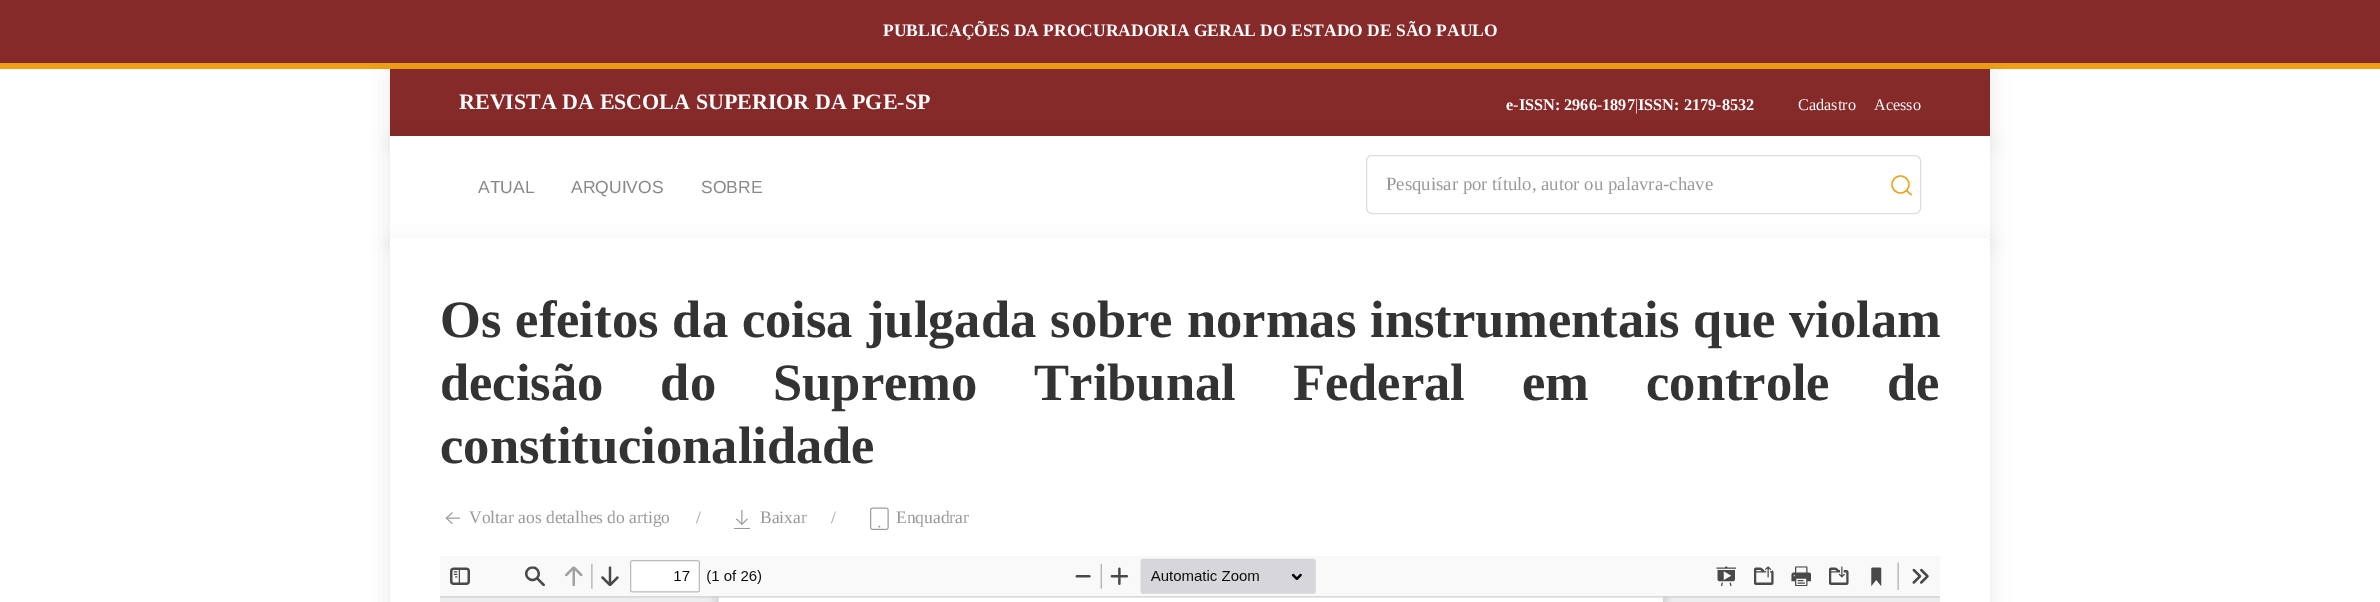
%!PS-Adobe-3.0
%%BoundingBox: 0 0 2380 602
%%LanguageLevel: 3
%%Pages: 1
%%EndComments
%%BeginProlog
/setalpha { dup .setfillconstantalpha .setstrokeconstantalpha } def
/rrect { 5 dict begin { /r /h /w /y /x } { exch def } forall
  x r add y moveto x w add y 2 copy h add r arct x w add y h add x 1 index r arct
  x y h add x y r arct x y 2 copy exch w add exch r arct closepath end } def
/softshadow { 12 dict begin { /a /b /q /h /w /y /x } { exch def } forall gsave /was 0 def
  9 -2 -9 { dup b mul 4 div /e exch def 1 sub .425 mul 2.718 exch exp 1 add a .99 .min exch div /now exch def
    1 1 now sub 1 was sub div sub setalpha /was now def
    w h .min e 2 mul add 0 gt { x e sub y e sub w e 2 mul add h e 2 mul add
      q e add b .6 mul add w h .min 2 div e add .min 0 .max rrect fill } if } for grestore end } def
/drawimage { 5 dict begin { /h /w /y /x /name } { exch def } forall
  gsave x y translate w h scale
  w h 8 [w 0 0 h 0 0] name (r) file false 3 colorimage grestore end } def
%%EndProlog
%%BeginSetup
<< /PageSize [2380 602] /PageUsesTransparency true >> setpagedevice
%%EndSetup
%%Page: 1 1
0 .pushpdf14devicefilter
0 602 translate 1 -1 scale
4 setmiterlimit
1 setgray
0 0 2380 602 rectfill
0.525 0.161 0.161 setrgbcolor
0 0 2380 63 rectfill
0.933 0.624 0.082 setrgbcolor
0 63 2380 6 rectfill
0 setgray
390 75 1600 68 0 9.5 0.08 softshadow
0.525 0.161 0.161 setrgbcolor
390 69 1600 67 rectfill
0 setgray
390 143 1600 101 0 9.5 0.08 softshadow
1 setgray
390 136 1600 102 rectfill
0.867 setgray
1366.5 155.5 554 58 5.5 rrect stroke
0.933 0.624 0.082 setrgbcolor
1.3 setlinewidth
newpath 1900.5 184.5 8.5 0 360 arc closepath stroke
newpath 1906.5 190.5 moveto 1911.5 195 lineto closepath stroke
0 setgray
390 244 1600 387 0 9.5 0.08 softshadow
1 setgray
390 238 1600 364 rectfill
(images/1.raw) 445 512 15 12 drawimage
(images/2.raw) 734 510 16 19 drawimage
(images/3.raw) 870 507 19 23 drawimage
(images/4.raw) 440 556 1500 46 drawimage
/LiberationSerif-Bold [17.5 0 0 -17.5 0 0] selectfont
883 36 moveto (PUBLICAÇÕES DA PROCURADORIA GERAL DO ESTADO DE SÃO PAULO) show
/LiberationSerif-Bold [22 0 0 -22 0 0] selectfont
459 109 moveto (REVISTA DA ESCOLA SUPERIOR DA PGE-SP) show
/LiberationSerif-Bold [16.25 0 0 -16.25 0 0] selectfont
1506 110 moveto (e-ISSN: 2966-1897) show
/LiberationSerif-Regular [16.25 0 0 -16.25 0 0] selectfont
1635 110 moveto (|) show
/LiberationSerif-Bold [16.25 0 0 -16.25 0 0] selectfont
1638 110 moveto (ISSN: 2179-8532) show
/LiberationSerif-Regular [16.25 0 0 -16.25 0 0] selectfont
1798 110 moveto (Cadastro) show
1874 110 moveto (Acesso) show
/LiberationSans-Regular [17.5 0 0 -17.5 0 0] selectfont
0.533 setgray
478 193 moveto (ATUAL) show
571 193 moveto (ARQUIVOS) show
701 193 moveto (SOBRE) show
/LiberationSerif-Regular [18.75 0 0 -18.75 0 0] selectfont
0.6 setgray
1386 190 moveto (Pesquisar por título, autor ou palavra-chave) show
/LiberationSerif-Bold [52.5 0 0 -52.5 0 0] selectfont
0.2 setgray
440 337 moveto 1 0 32 (Os efeitos da coisa julgada sobre normas instrumentais que violam) widthshow
440 400 moveto 44 0 32 (decisão do Supremo Tribunal Federal em controle de) widthshow
440 463 moveto (constitucionalidade) show
/LiberationSerif-Regular [17.5 0 0 -17.5 0 0] selectfont
0.6 setgray
469 523 moveto (Voltar aos detalhes do artigo) show
696 523 moveto (/) show
760 523 moveto (Baixar) show
831 523 moveto (/) show
896 523 moveto (Enquadrar) show
.poppdf14devicefilter showpage
%%EOF
